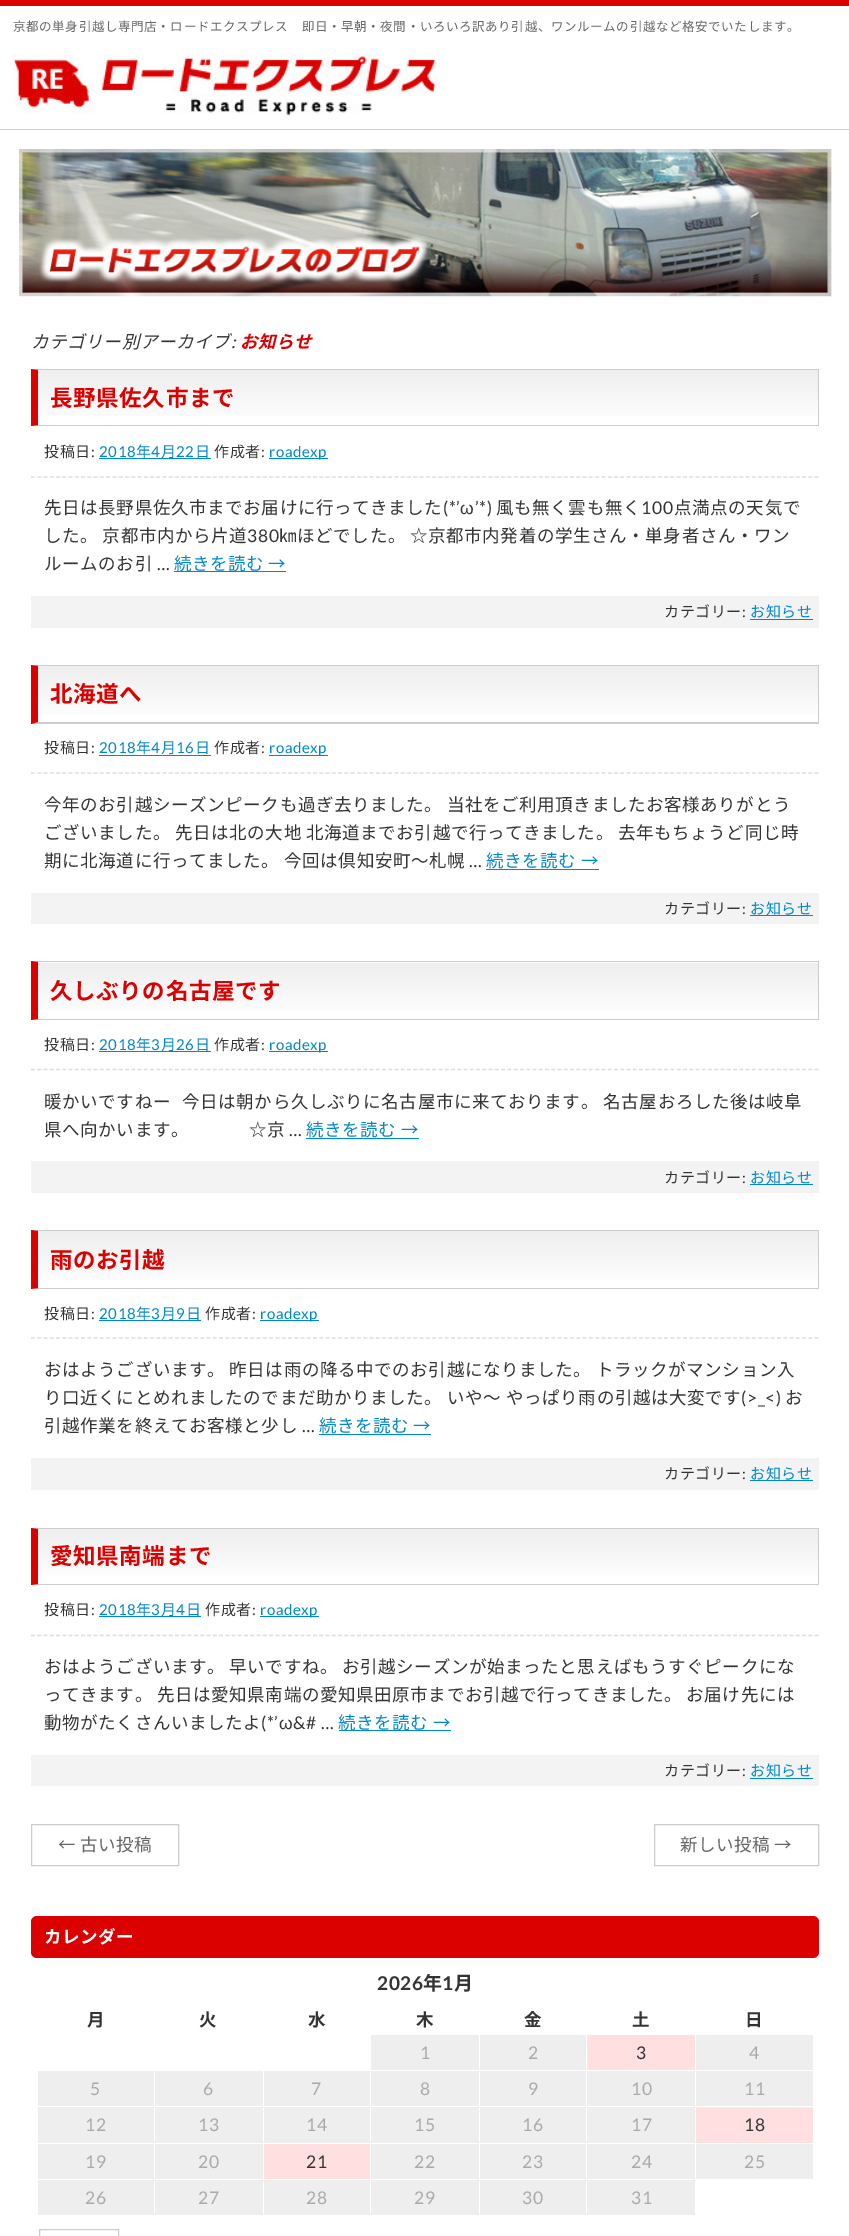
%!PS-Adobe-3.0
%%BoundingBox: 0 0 849 2236
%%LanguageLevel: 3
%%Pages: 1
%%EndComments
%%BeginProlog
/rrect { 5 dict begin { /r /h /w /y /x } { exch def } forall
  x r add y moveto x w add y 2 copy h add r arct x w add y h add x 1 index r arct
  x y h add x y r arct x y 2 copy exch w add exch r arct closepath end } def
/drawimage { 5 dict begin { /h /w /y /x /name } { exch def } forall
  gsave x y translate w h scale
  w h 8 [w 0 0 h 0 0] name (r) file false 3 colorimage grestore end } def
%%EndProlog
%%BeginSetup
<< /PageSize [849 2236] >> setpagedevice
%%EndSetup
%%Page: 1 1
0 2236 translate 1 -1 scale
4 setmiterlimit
1 setgray
0 0 849 2236 rectfill
0.859 0.004 0 setrgbcolor
0 0 849 6 rectfill
0.8 setgray
0 129 849 1 rectfill
(images/1.raw) 12 54 426 62 drawimage
(images/2.raw) 19 149 813 148 drawimage
gsave newpath 38 370 moveto 818 370 lineto 818 417 lineto 38 417 lineto closepath clip newpath
<< /ShadingType 2 /ColorSpace /DeviceRGB /Coords [428 370 428 425] /Extend [true true] /Function << /FunctionType 2 /Domain [0 1] /C0 [0.933 0.933 0.933] /C1 [1 1 1] /N 1 >> >> shfill grestore
newpath 31 369 moveto 819 369 lineto 818 370 lineto 38 370 lineto closepath fill
818 369 1 57 rectfill
newpath 819 426 moveto 31 426 lineto 38 425 lineto 818 425 lineto closepath fill
0.859 0.004 0 setrgbcolor
newpath 31 426 moveto 31 369 lineto 38 370 lineto 38 425 lineto closepath fill
0.867 setgray
1.2 setlinewidth
[3.75 2.52] 0 setdash
newpath 31 477 moveto 819 477 lineto stroke
0 0.533 0.8 setrgbcolor
99 458 112 1 rectfill
269 458 59 1 rectfill
174 571 112 1 rectfill
0.953 setgray
31 596 788 32 rectfill
0 0.533 0.8 setrgbcolor
750 619 63 1 rectfill
gsave newpath 38 666 moveto 818 666 lineto 818 715 lineto 38 715 lineto closepath clip newpath
<< /ShadingType 2 /ColorSpace /DeviceRGB /Coords [428 666 428 723] /Extend [true true] /Function << /FunctionType 2 /Domain [0 1] /C0 [0.933 0.933 0.933] /C1 [1 1 1] /N 1 >> >> shfill grestore
0.8 setgray
newpath 31 665 moveto 819 665 lineto 818 666 lineto 38 666 lineto closepath fill
818 665 1 59 rectfill
newpath 819 724 moveto 31 724 lineto 38 722 lineto 818 722 lineto closepath fill
0.859 0.004 0 setrgbcolor
newpath 31 724 moveto 31 665 lineto 38 666 lineto 38 722 lineto closepath fill
0.867 setgray
newpath 31 773 moveto 819 773 lineto stroke
0 0.533 0.8 setrgbcolor
99 755 112 1 rectfill
269 755 59 1 rectfill
486 869 113 1 rectfill
0.953 setgray
31 893 788 31 rectfill
0 0.533 0.8 setrgbcolor
750 915 63 1 rectfill
gsave newpath 38 963 moveto 818 963 lineto 818 1011 lineto 38 1011 lineto closepath clip newpath
<< /ShadingType 2 /ColorSpace /DeviceRGB /Coords [428 963 428 1019] /Extend [true true] /Function << /FunctionType 2 /Domain [0 1] /C0 [0.933 0.933 0.933] /C1 [1 1 1] /N 1 >> >> shfill grestore
0.8 setgray
newpath 31 961 moveto 819 961 lineto 818 962 lineto 38 962 lineto closepath fill
818 961 1 59 rectfill
newpath 819 1020 moveto 31 1020 lineto 38 1019 lineto 818 1019 lineto closepath fill
0.859 0.004 0 setrgbcolor
newpath 31 1020 moveto 31 961 lineto 38 962 lineto 38 1019 lineto closepath fill
0.867 setgray
newpath 31 1069.5 moveto 819 1069.5 lineto stroke
0 0.533 0.8 setrgbcolor
99 1051 112 1 rectfill
269 1051 59 1 rectfill
306 1138 113 1 rectfill
0.953 setgray
31 1161 788 32 rectfill
0 0.533 0.8 setrgbcolor
750 1184 63 1 rectfill
gsave newpath 38 1231 moveto 818 1231 lineto 818 1280 lineto 38 1280 lineto closepath clip newpath
<< /ShadingType 2 /ColorSpace /DeviceRGB /Coords [428 1231 428 1288] /Extend [true true] /Function << /FunctionType 2 /Domain [0 1] /C0 [0.933 0.933 0.933] /C1 [1 1 1] /N 1 >> >> shfill grestore
0.8 setgray
newpath 31 1230 moveto 819 1230 lineto 818 1231 lineto 38 1231 lineto closepath fill
818 1230 1 59 rectfill
newpath 819 1289 moveto 31 1289 lineto 38 1288 lineto 818 1288 lineto closepath fill
0.859 0.004 0 setrgbcolor
newpath 31 1289 moveto 31 1230 lineto 38 1231 lineto 38 1288 lineto closepath fill
0.867 setgray
newpath 31 1338 moveto 819 1338 lineto stroke
0 0.533 0.8 setrgbcolor
99 1320 102 1 rectfill
260 1320 59 1 rectfill
319 1434 112 1 rectfill
0.953 setgray
31 1458 788 32 rectfill
0 0.533 0.8 setrgbcolor
750 1480 63 1 rectfill
gsave newpath 38 1529 moveto 818 1529 lineto 818 1576 lineto 38 1576 lineto closepath clip newpath
<< /ShadingType 2 /ColorSpace /DeviceRGB /Coords [428 1529 428 1584] /Extend [true true] /Function << /FunctionType 2 /Domain [0 1] /C0 [0.933 0.933 0.933] /C1 [1 1 1] /N 1 >> >> shfill grestore
0.8 setgray
newpath 31 1528 moveto 819 1528 lineto 818 1529 lineto 38 1529 lineto closepath fill
818 1528 1 57 rectfill
newpath 819 1585 moveto 31 1585 lineto 38 1584 lineto 818 1584 lineto closepath fill
0.859 0.004 0 setrgbcolor
newpath 31 1585 moveto 31 1528 lineto 38 1529 lineto 38 1584 lineto closepath fill
0.867 setgray
newpath 31 1635.5 moveto 819 1635.5 lineto stroke
0 0.533 0.8 setrgbcolor
99 1616 102 1 rectfill
260 1616 59 1 rectfill
339 1730 112 1 rectfill
0.953 setgray
31 1755 788 31 rectfill
0 0.533 0.8 setrgbcolor
750 1778 63 1 rectfill
0.8 setgray
1 setlinewidth
[] 0 setdash
31.5 1824.5 147 41 rectstroke
654.5 1824.5 164 41 rectstroke
0.859 0.004 0 setrgbcolor
31 1916 788 42 6 rrect fill
0.933 setgray
371 2035 108 35 rectfill
480 2035 108 35 rectfill
1 0.875 0.875 setrgbcolor
588 2035 107 35 rectfill
0.933 setgray
696 2035 117 35 rectfill
38 2071 116 72 rectfill
155 2071 108 72 rectfill
264 2071 106 72 rectfill
371 2071 108 72 rectfill
480 2071 215 37 rectfill
480 2108 215 35 rectfill
696 2071 117 37 rectfill
1 setgray
586 2106 230 1 rectfill
0.933 setgray
480 2144 215 35 rectfill
480 2180 215 35 rectfill
1 setgray
586 2143 1 73 rectfill
586 2106 1 38 rectfill
34 2106 554 1 rectfill
586 2034 1 74 rectfill
1 0.875 0.875 setrgbcolor
696 2108 117 35 rectfill
0.933 setgray
38 2144 116 35 rectfill
155 2144 108 35 rectfill
1 0.875 0.875 setrgbcolor
264 2144 106 35 rectfill
0.933 setgray
371 2144 108 35 rectfill
696 2144 117 35 rectfill
38 2180 116 35 rectfill
155 2180 108 35 rectfill
264 2180 106 35 rectfill
371 2180 108 35 rectfill
0.8 setgray
39.5 2229.5 79 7 rectstroke
/NotoSansJP-Regular [12.5 0 0 -12.5 0 0] selectfont
0.4 setgray
13 31 moveto 0.62 0 (京都の単身引越し専門店・ロードエクスプレス　即日・早朝・夜間・いろいろ訳あり引越、ワンルームの引越など格安でいたします。) ashow
/NotoSansJP-Italic [17.5 0 0 -17.5 0 0] selectfont
0.2 setgray
31 348 moveto 0.62 0 (カテゴリー別アーカイブ) ashow
/Lato-Italic [17.5 0 0 -17.5 0 0] selectfont
231 348 moveto 0.62 0 (:) ashow
/NotoSansJP-BoldItalic [17.5 0 0 -17.5 0 0] selectfont
0.859 0.004 0 setrgbcolor
240 348 moveto 0.62 0 (お知らせ) ashow
/NotoSansJP-Bold [22.5 0 0 -22.5 0 0] selectfont
50 406 moveto 0.62 0 (長野県佐久市まで) ashow
/NotoSansJP-Regular [15 0 0 -15 0 0] selectfont
0.2 setgray
44 457 moveto 0.62 0 (投稿日) ashow
/Lato-Regular [15 0 0 -15 0 0] selectfont
91 457 moveto 0.62 0 (:) ashow
0 0.533 0.8 setrgbcolor
99 457 moveto 0.62 0 (2018) ashow
/NotoSansJP-Regular [15 0 0 -15 0 0] selectfont
136 457 moveto 0.62 0 (年) ashow
/Lato-Regular [15 0 0 -15 0 0] selectfont
151 457 moveto 0.62 0 (4) ashow
/NotoSansJP-Regular [15 0 0 -15 0 0] selectfont
161 457 moveto 0.62 0 (月) ashow
/Lato-Regular [15 0 0 -15 0 0] selectfont
176 457 moveto 0.62 0 (22) ashow
/NotoSansJP-Regular [15 0 0 -15 0 0] selectfont
195 457 moveto 0.62 0 (日) ashow
0.2 setgray
214 457 moveto 0.62 0 (作成者) ashow
/Lato-Regular [15 0 0 -15 0 0] selectfont
261 457 moveto 0.62 0 (:) ashow
0 0.533 0.8 setrgbcolor
269 457 moveto 0.62 0 (roadexp) ashow
/NotoSansJP-Regular [17.5 0 0 -17.5 0 0] selectfont
0.2 setgray
44 514 moveto 0.62 0 (先日は長野県佐久市までお届けに行ってきました) ashow
/Lato-Regular [17.5 0 0 -17.5 0 0] selectfont
443 514 moveto 0.62 0 (\(*’) ashow
/LiberationSans-Regular [17.5 0 0 -17.5 0 0] selectfont
460 514 moveto 0.62 0 (ω) ashow
/Lato-Regular [17.5 0 0 -17.5 0 0] selectfont
475 514 moveto 0.62 0 (’*\)) ashow
/NotoSansJP-Regular [17.5 0 0 -17.5 0 0] selectfont
496 514 moveto 0.62 0 (風も無く雲も無く) ashow
/Lato-Regular [17.5 0 0 -17.5 0 0] selectfont
641 514 moveto 0.62 0 (100) ashow
/NotoSansJP-Regular [17.5 0 0 -17.5 0 0] selectfont
674 514 moveto 0.62 0 (点満点の天気で) ashow
44 542 moveto -0.5 0 32 0.62 0 (した。 京都市内から片道) awidthshow
/Lato-Regular [17.5 0 0 -17.5 0 0] selectfont
247 542 moveto 0.62 0 (380) ashow
/NotoSansJP-Regular [17.5 0 0 -17.5 0 0] selectfont
279 542 moveto -0.5 0 32 0.62 0 (㎞ほどでした。 ☆京都市内発着の学生さん・単身者さん・ワン) awidthshow
44 570 moveto 0.62 0 (ルームのお引) ashow
0 0.533 0.8 setrgbcolor
174 570 moveto 0.62 0 (続きを読む) ashow
268 570 moveto 0.62 0 (→) ashow
/Lato-Regular [17.5 0 0 -17.5 0 0] selectfont
0.2 setgray
157 570 moveto 0.62 0 (…) ashow
/NotoSansJP-Regular [15 0 0 -15 0 0] selectfont
664 617 moveto 0.62 0 (カテゴリー) ashow
/Lato-Regular [15 0 0 -15 0 0] selectfont
742 617 moveto 0.62 0 (:) ashow
/NotoSansJP-Regular [15 0 0 -15 0 0] selectfont
0 0.533 0.8 setrgbcolor
750 617 moveto 0.62 0 (お知らせ) ashow
/NotoSansJP-Bold [22.5 0 0 -22.5 0 0] selectfont
0.859 0.004 0 setrgbcolor
50 702 moveto 0.62 0 (北海道へ) ashow
/NotoSansJP-Regular [15 0 0 -15 0 0] selectfont
0.2 setgray
44 753 moveto 0.62 0 (投稿日) ashow
/Lato-Regular [15 0 0 -15 0 0] selectfont
91 753 moveto 0.62 0 (:) ashow
0 0.533 0.8 setrgbcolor
99 753 moveto 0.62 0 (2018) ashow
/NotoSansJP-Regular [15 0 0 -15 0 0] selectfont
136 753 moveto 0.62 0 (年) ashow
/Lato-Regular [15 0 0 -15 0 0] selectfont
151 753 moveto 0.62 0 (4) ashow
/NotoSansJP-Regular [15 0 0 -15 0 0] selectfont
161 753 moveto 0.62 0 (月) ashow
/Lato-Regular [15 0 0 -15 0 0] selectfont
176 753 moveto 0.62 0 (16) ashow
/NotoSansJP-Regular [15 0 0 -15 0 0] selectfont
195 753 moveto 0.62 0 (日) ashow
0.2 setgray
214 753 moveto 0.62 0 (作成者) ashow
/Lato-Regular [15 0 0 -15 0 0] selectfont
261 753 moveto 0.62 0 (:) ashow
0 0.533 0.8 setrgbcolor
269 753 moveto 0.62 0 (roadexp) ashow
/NotoSansJP-Regular [17.5 0 0 -17.5 0 0] selectfont
0.2 setgray
44 811 moveto -0.5 0 32 0.62 0 (今年のお引越シーズンピークも過ぎ去りました。 当社をご利用頂きましたお客様ありがとう) awidthshow
44 839 moveto -0.5 0 32 0.62 0 (ございました。 先日は北の大地 北海道までお引越で行ってきました。 去年もちょうど同じ時) awidthshow
44 867 moveto 0.62 0 (期に北海道に行ってました。 今回は倶知安町〜札幌) ashow
0 0.533 0.8 setrgbcolor
486 867 moveto 0.62 0 (続きを読む) ashow
581 867 moveto 0.62 0 (→) ashow
/Lato-Regular [17.5 0 0 -17.5 0 0] selectfont
0.2 setgray
469 867 moveto 0.62 0 (…) ashow
/NotoSansJP-Regular [15 0 0 -15 0 0] selectfont
664 914 moveto 0.62 0 (カテゴリー) ashow
/Lato-Regular [15 0 0 -15 0 0] selectfont
742 914 moveto 0.62 0 (:) ashow
/NotoSansJP-Regular [15 0 0 -15 0 0] selectfont
0 0.533 0.8 setrgbcolor
750 914 moveto 0.62 0 (お知らせ) ashow
/NotoSansJP-Bold [22.5 0 0 -22.5 0 0] selectfont
0.859 0.004 0 setrgbcolor
50 999 moveto 0.62 0 (久しぶりの名古屋です) ashow
/NotoSansJP-Regular [15 0 0 -15 0 0] selectfont
0.2 setgray
44 1050 moveto 0.62 0 (投稿日) ashow
/Lato-Regular [15 0 0 -15 0 0] selectfont
91 1050 moveto 0.62 0 (:) ashow
0 0.533 0.8 setrgbcolor
99 1050 moveto 0.62 0 (2018) ashow
/NotoSansJP-Regular [15 0 0 -15 0 0] selectfont
136 1050 moveto 0.62 0 (年) ashow
/Lato-Regular [15 0 0 -15 0 0] selectfont
151 1050 moveto 0.62 0 (3) ashow
/NotoSansJP-Regular [15 0 0 -15 0 0] selectfont
161 1050 moveto 0.62 0 (月) ashow
/Lato-Regular [15 0 0 -15 0 0] selectfont
176 1050 moveto 0.62 0 (26) ashow
/NotoSansJP-Regular [15 0 0 -15 0 0] selectfont
195 1050 moveto 0.62 0 (日) ashow
0.2 setgray
214 1050 moveto 0.62 0 (作成者) ashow
/Lato-Regular [15 0 0 -15 0 0] selectfont
261 1050 moveto 0.62 0 (:) ashow
0 0.533 0.8 setrgbcolor
269 1050 moveto 0.62 0 (roadexp) ashow
/NotoSansJP-Regular [17.5 0 0 -17.5 0 0] selectfont
0.2 setgray
44 1108 moveto 0.62 0 (暖かいですねー) ashow
182 1108 moveto 0.62 0 (今日は朝から久しぶりに名古屋市に来ております。 名古屋おろした後は岐阜) ashow
44 1136 moveto 0.62 0 (県へ向かいます。) ashow
249 1136 moveto 0.62 0 (☆京) ashow
0 0.533 0.8 setrgbcolor
306 1136 moveto 0.62 0 (続きを読む) ashow
401 1136 moveto 0.62 0 (→) ashow
/Lato-Regular [17.5 0 0 -17.5 0 0] selectfont
0.2 setgray
289 1136 moveto 0.62 0 (…) ashow
/NotoSansJP-Regular [15 0 0 -15 0 0] selectfont
664 1183 moveto 0.62 0 (カテゴリー) ashow
/Lato-Regular [15 0 0 -15 0 0] selectfont
742 1183 moveto 0.62 0 (:) ashow
/NotoSansJP-Regular [15 0 0 -15 0 0] selectfont
0 0.533 0.8 setrgbcolor
750 1183 moveto 0.62 0 (お知らせ) ashow
/NotoSansJP-Bold [22.5 0 0 -22.5 0 0] selectfont
0.859 0.004 0 setrgbcolor
50 1268 moveto 0.62 0 (雨のお引越) ashow
/NotoSansJP-Regular [15 0 0 -15 0 0] selectfont
0.2 setgray
44 1319 moveto 0.62 0 (投稿日) ashow
/Lato-Regular [15 0 0 -15 0 0] selectfont
91 1319 moveto 0.62 0 (:) ashow
0 0.533 0.8 setrgbcolor
99 1319 moveto 0.62 0 (2018) ashow
/NotoSansJP-Regular [15 0 0 -15 0 0] selectfont
136 1319 moveto 0.62 0 (年) ashow
/Lato-Regular [15 0 0 -15 0 0] selectfont
151 1319 moveto 0.62 0 (3) ashow
/NotoSansJP-Regular [15 0 0 -15 0 0] selectfont
161 1319 moveto 0.62 0 (月) ashow
/Lato-Regular [15 0 0 -15 0 0] selectfont
176 1319 moveto 0.62 0 (9) ashow
/NotoSansJP-Regular [15 0 0 -15 0 0] selectfont
186 1319 moveto 0.62 0 (日) ashow
0.2 setgray
205 1319 moveto 0.62 0 (作成者) ashow
/Lato-Regular [15 0 0 -15 0 0] selectfont
252 1319 moveto 0.62 0 (:) ashow
0 0.533 0.8 setrgbcolor
260 1319 moveto 0.62 0 (roadexp) ashow
/NotoSansJP-Regular [17.5 0 0 -17.5 0 0] selectfont
0.2 setgray
44 1376 moveto -0.5 0 32 0.62 0 (おはようございます。 昨日は雨の降る中でのお引越になりました。 トラックがマンション入) awidthshow
44 1404 moveto 0.62 0 (り口近くにとめれましたのでまだ助かりました。 いや〜 やっぱり雨の引越は大変です) ashow
/Lato-Regular [17.5 0 0 -17.5 0 0] selectfont
741 1404 moveto 0.62 0 (\(>_<\)) ashow
/NotoSansJP-Regular [17.5 0 0 -17.5 0 0] selectfont
785 1404 moveto 0.62 0 (お) ashow
44 1432 moveto 0.62 0 (引越作業を終えてお客様と少し) ashow
0 0.533 0.8 setrgbcolor
319 1432 moveto 0.62 0 (続きを読む) ashow
413 1432 moveto 0.62 0 (→) ashow
/Lato-Regular [17.5 0 0 -17.5 0 0] selectfont
0.2 setgray
302 1432 moveto 0.62 0 (…) ashow
/NotoSansJP-Regular [15 0 0 -15 0 0] selectfont
664 1479 moveto 0.62 0 (カテゴリー) ashow
/Lato-Regular [15 0 0 -15 0 0] selectfont
742 1479 moveto 0.62 0 (:) ashow
/NotoSansJP-Regular [15 0 0 -15 0 0] selectfont
0 0.533 0.8 setrgbcolor
750 1479 moveto 0.62 0 (お知らせ) ashow
/NotoSansJP-Bold [22.5 0 0 -22.5 0 0] selectfont
0.859 0.004 0 setrgbcolor
50 1564 moveto 0.62 0 (愛知県南端まで) ashow
/NotoSansJP-Regular [15 0 0 -15 0 0] selectfont
0.2 setgray
44 1615 moveto 0.62 0 (投稿日) ashow
/Lato-Regular [15 0 0 -15 0 0] selectfont
91 1615 moveto 0.62 0 (:) ashow
0 0.533 0.8 setrgbcolor
99 1615 moveto 0.62 0 (2018) ashow
/NotoSansJP-Regular [15 0 0 -15 0 0] selectfont
136 1615 moveto 0.62 0 (年) ashow
/Lato-Regular [15 0 0 -15 0 0] selectfont
151 1615 moveto 0.62 0 (3) ashow
/NotoSansJP-Regular [15 0 0 -15 0 0] selectfont
161 1615 moveto 0.62 0 (月) ashow
/Lato-Regular [15 0 0 -15 0 0] selectfont
176 1615 moveto 0.62 0 (4) ashow
/NotoSansJP-Regular [15 0 0 -15 0 0] selectfont
186 1615 moveto 0.62 0 (日) ashow
0.2 setgray
205 1615 moveto 0.62 0 (作成者) ashow
/Lato-Regular [15 0 0 -15 0 0] selectfont
252 1615 moveto 0.62 0 (:) ashow
0 0.533 0.8 setrgbcolor
260 1615 moveto 0.62 0 (roadexp) ashow
/NotoSansJP-Regular [17.5 0 0 -17.5 0 0] selectfont
0.2 setgray
44 1673 moveto -0.5 0 32 0.62 0 (おはようございます。 早いですね。 お引越シーズンが始まったと思えばもうすぐピークにな) awidthshow
44 1701 moveto -0.5 0 32 0.62 0 (ってきます。 先日は愛知県南端の愛知県田原市までお引越で行ってきました。 お届け先には) awidthshow
44 1729 moveto 0.62 0 (動物がたくさんいましたよ) ashow
/Lato-Regular [17.5 0 0 -17.5 0 0] selectfont
261 1729 moveto 0.62 0 (\(*’) ashow
/LiberationSans-Regular [17.5 0 0 -17.5 0 0] selectfont
279 1729 moveto 0.62 0 (ω) ashow
/Lato-Regular [17.5 0 0 -17.5 0 0] selectfont
293 1729 moveto 0.62 0 (&# …) ashow
/NotoSansJP-Regular [17.5 0 0 -17.5 0 0] selectfont
0 0.533 0.8 setrgbcolor
338 1729 moveto 0.62 0 (続きを読む) ashow
433 1729 moveto 0.62 0 (→) ashow
/NotoSansJP-Regular [15 0 0 -15 0 0] selectfont
0.2 setgray
664 1776 moveto 0.62 0 (カテゴリー) ashow
/Lato-Regular [15 0 0 -15 0 0] selectfont
742 1776 moveto 0.62 0 (:) ashow
/NotoSansJP-Regular [15 0 0 -15 0 0] selectfont
0 0.533 0.8 setrgbcolor
750 1776 moveto 0.62 0 (お知らせ) ashow
/NotoSansJP-Regular [17.5 0 0 -17.5 0 0] selectfont
0.4 setgray
58 1851 moveto 0.62 0 (←) ashow
80 1851 moveto 0.62 0 (古い投稿) ashow
680 1851 moveto 0.62 0 (新しい投稿) ashow
774 1851 moveto 0.62 0 (→) ashow
/NotoSansJP-Bold [17.5 0 0 -17.5 0 0] selectfont
1 setgray
44 1943 moveto 0.62 0 (カレンダー) ashow
/Lato-Bold [19 0 0 -19 0 0] selectfont
0.2 setgray
377 1990 moveto 0.62 0 (2026) ashow
/NotoSansJP-Bold [19 0 0 -19 0 0] selectfont
423 1990 moveto 0.62 0 (年) ashow
/Lato-Bold [19 0 0 -19 0 0] selectfont
442 1990 moveto 0.62 0 (1) ashow
/NotoSansJP-Bold [19 0 0 -19 0 0] selectfont
454 1990 moveto 0.62 0 (月) ashow
/NotoSansJP-Bold [17.5 0 0 -17.5 0 0] selectfont
87 2026 moveto 0.62 0 (月) ashow
199 2026 moveto 0.62 0 (火) ashow
308 2026 moveto 0.62 0 (水) ashow
416 2026 moveto 0.62 0 (木) ashow
524 2026 moveto 0.62 0 (金) ashow
632 2026 moveto 0.62 0 (土) ashow
745 2026 moveto 0.62 0 (日) ashow
/Lato-Regular [17.5 0 0 -17.5 0 0] selectfont
0.667 setgray
420 2059 moveto 0.62 0 (1) ashow
528 2059 moveto 0.62 0 (2) ashow
0.2 setgray
636 2059 moveto 0.62 0 (3) ashow
0.667 setgray
749 2059 moveto 0.62 0 (4) ashow
90 2095 moveto 0.62 0 (5) ashow
203 2095 moveto 0.62 0 (6) ashow
311 2095 moveto 0.62 0 (7) ashow
420 2095 moveto 0.62 0 (8) ashow
528 2095 moveto 0.62 0 (9) ashow
631 2095 moveto 0.62 0 (10) ashow
744 2095 moveto 0.62 0 (11) ashow
85 2131 moveto 0.62 0 (12) ashow
198 2131 moveto 0.62 0 (13) ashow
306 2131 moveto 0.62 0 (14) ashow
414 2131 moveto 0.62 0 (15) ashow
522 2131 moveto 0.62 0 (16) ashow
631 2131 moveto 0.62 0 (17) ashow
0.2 setgray
744 2131 moveto 0.62 0 (18) ashow
0.667 setgray
85 2168 moveto 0.62 0 (19) ashow
198 2168 moveto 0.62 0 (20) ashow
0.2 setgray
306 2168 moveto 0.62 0 (21) ashow
0.667 setgray
414 2168 moveto 0.62 0 (22) ashow
522 2168 moveto 0.62 0 (23) ashow
631 2168 moveto 0.62 0 (24) ashow
744 2168 moveto 0.62 0 (25) ashow
85 2204 moveto 0.62 0 (26) ashow
198 2204 moveto 0.62 0 (27) ashow
306 2204 moveto 0.62 0 (28) ashow
414 2204 moveto 0.62 0 (29) ashow
522 2204 moveto 0.62 0 (30) ashow
631 2204 moveto 0.62 0 (31) ashow
showpage
%%EOF
